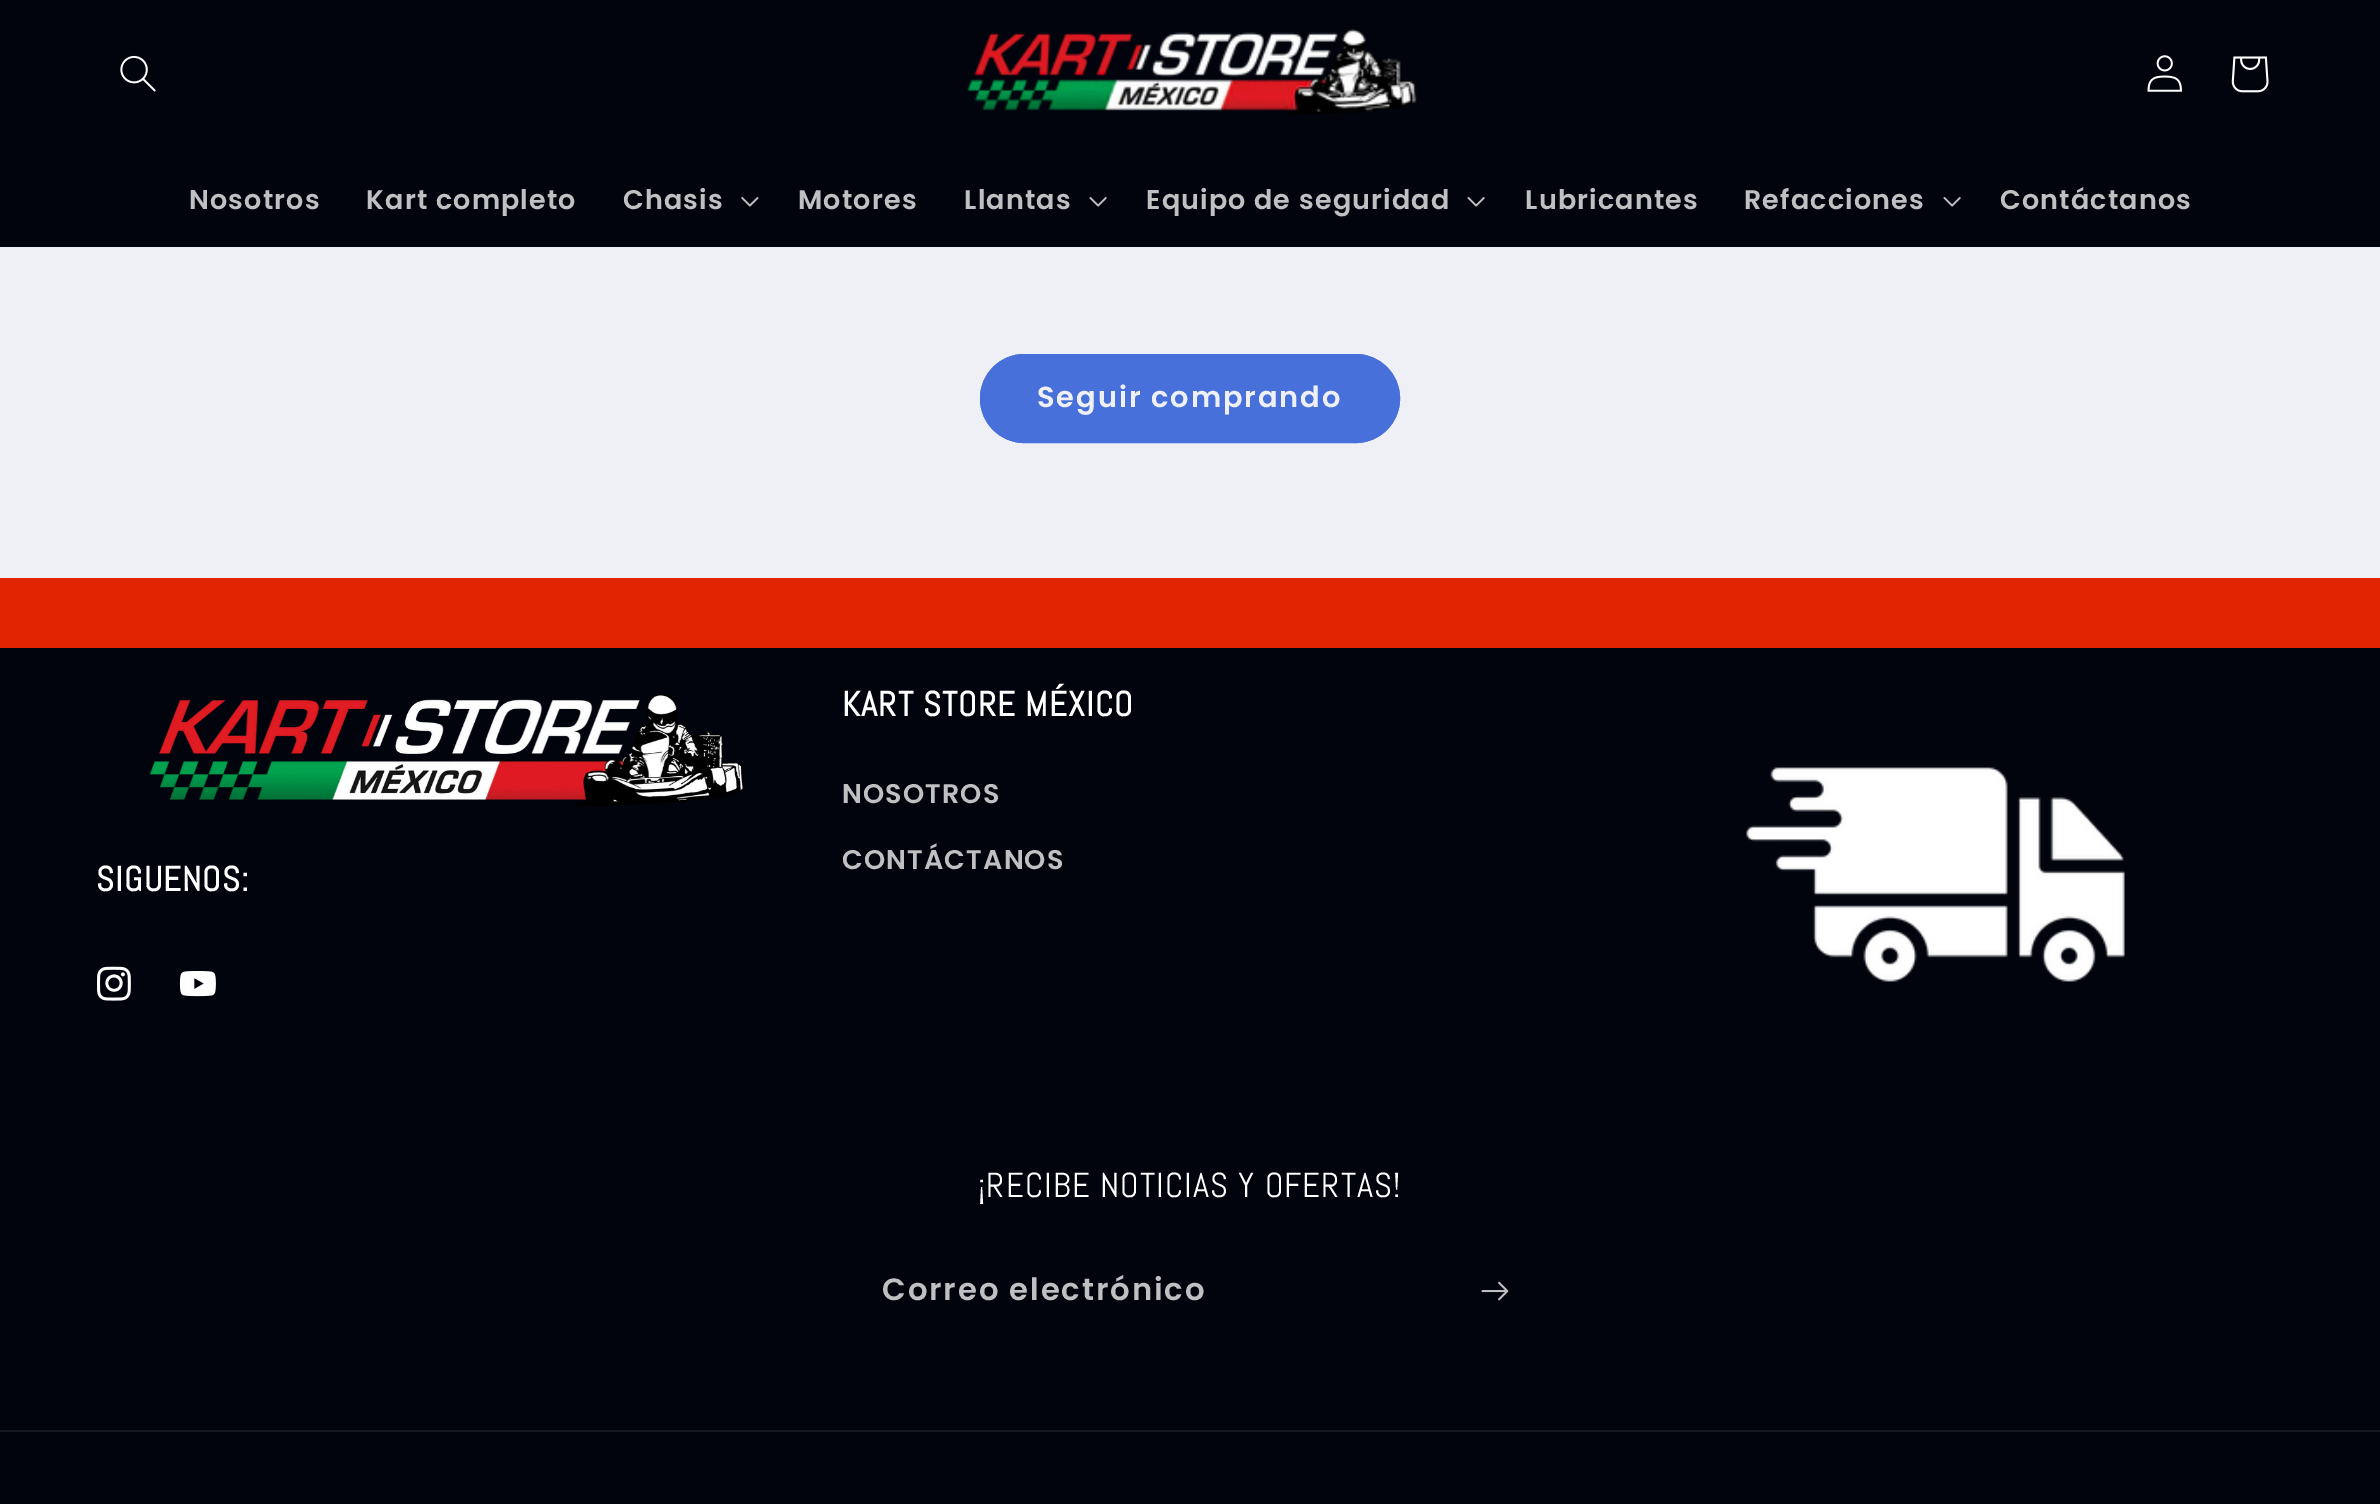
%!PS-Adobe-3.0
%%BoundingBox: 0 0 2380 1504
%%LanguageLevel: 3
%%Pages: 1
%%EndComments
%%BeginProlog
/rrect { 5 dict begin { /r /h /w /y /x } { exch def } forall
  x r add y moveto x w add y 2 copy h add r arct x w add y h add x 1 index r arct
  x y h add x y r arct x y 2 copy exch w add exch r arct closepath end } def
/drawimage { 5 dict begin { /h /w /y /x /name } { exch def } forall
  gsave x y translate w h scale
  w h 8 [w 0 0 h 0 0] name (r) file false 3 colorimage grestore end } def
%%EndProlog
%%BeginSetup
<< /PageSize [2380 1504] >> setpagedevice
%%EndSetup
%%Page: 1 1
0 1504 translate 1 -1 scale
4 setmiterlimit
0.937 0.941 0.961 setrgbcolor
0 0 2380 1504 rectfill
0.004 0.016 0.051 setrgbcolor
0 0 2380 247 rectfill
(images/1.raw) 120 55 36 37 drawimage
(images/2.raw) 967 29 450 86 drawimage
(images/3.raw) 2147 55 35 37 drawimage
(images/4.raw) 2231 56 38 37 drawimage
(images/5.raw) 741 197 18 10 drawimage
(images/6.raw) 1089 197 18 10 drawimage
(images/6.raw) 1467 197 18 10 drawimage
(images/6.raw) 1943 197 18 10 drawimage
0.278 0.439 0.859 setrgbcolor
980 354 420 89 44.5 rrect fill
2 setlinewidth
981 355 418 87 43.5 rrect stroke
0.89 0.141 0.008 setrgbcolor
0 578 2380 70 rectfill
0.004 0.016 0.051 setrgbcolor
0 648 2380 856 rectfill
(images/7.raw) 149 693 594 114 drawimage
(images/8.raw) 97 966 34 35 drawimage
(images/9.raw) 179 971 37 26 drawimage
(images/10.raw) 1746 767 379 215 drawimage
(images/11.raw) 1481 1281 28 20 drawimage
0.082 0.094 0.125 setrgbcolor
0 1430 2380 2 rectfill
/Poppins-SemiBold [27 0 0 -27 0 0] selectfont
0.753 0.753 0.765 setrgbcolor
189 209 moveto 1.15 0 (Nosotros) ashow
366 209 moveto 1.15 0 (Kart completo) ashow
623 209 moveto 1.15 0 (Chasis) ashow
798 209 moveto 1.15 0 (Motores) ashow
964 209 moveto 1.15 0 (Llantas) ashow
1146 209 moveto 1.15 0 (Equipo de seguridad) ashow
1525 209 moveto 1.15 0 (Lubricantes) ashow
1744 209 moveto 1.15 0 (Refacciones) ashow
2000 209 moveto 1.15 0 (Contáctanos) ashow
/Poppins-SemiBold [28.9 0 0 -28.9 0 0] selectfont
0.937 0.941 0.961 setrgbcolor
1037 407 moveto 1.9 0 (Seguir comprando) ashow
/Abel-Bold [34.6 0 0 -34.6 0 0] selectfont
1 setgray
96 891 moveto 1.15 0 (SIGUENOS:) ashow
842 716 moveto 1.15 0 (KART STORE MÉXICO) ashow
/Poppins-SemiBold [27 0 0 -27 0 0] selectfont
0.753 0.753 0.765 setrgbcolor
842 803 moveto 1.15 0 (NOSOTROS) ashow
842 869 moveto 1.15 0 (CONTÁCTANOS) ashow
/Abel-Regular [34.6 0 0 -34.6 0 0] selectfont
1 setgray
978 1197 moveto 1.15 0 (¡RECIBE NOTICIAS Y OFERTAS!) ashow
/Poppins-SemiBold [30.75 0 0 -30.75 0 0] selectfont
0.753 0.753 0.765 setrgbcolor
882 1300 moveto 1.9 0 (Correo electrónico) ashow
showpage
%%EOF
